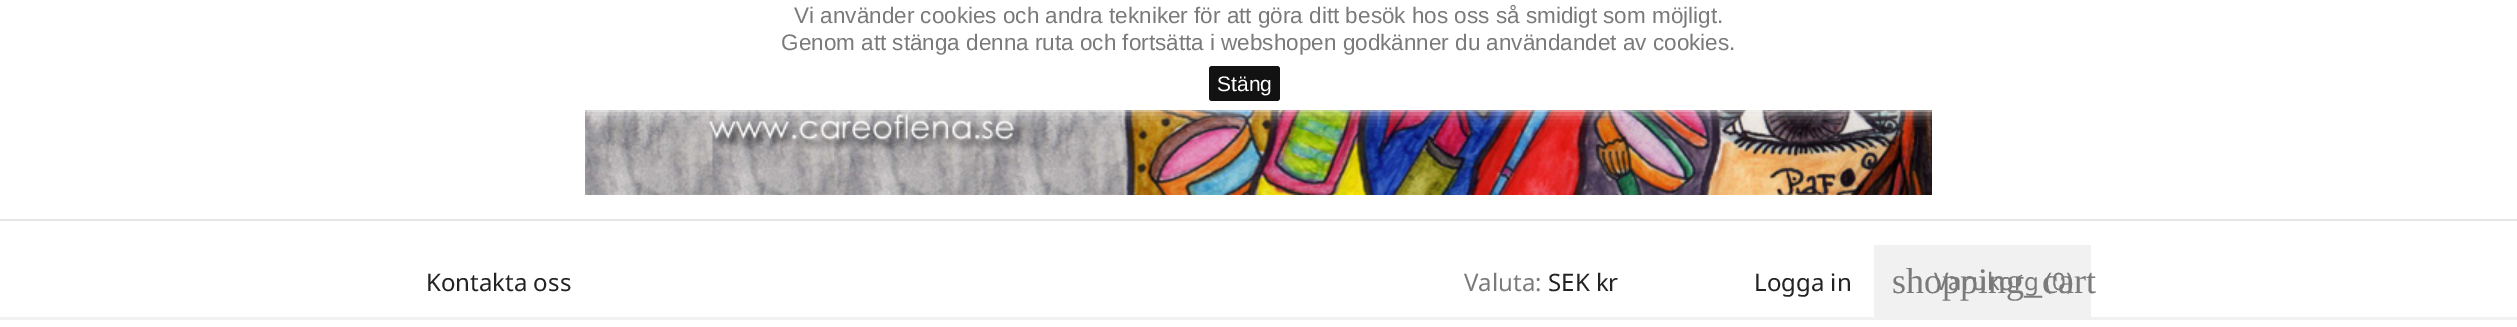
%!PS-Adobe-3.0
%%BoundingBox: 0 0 2517 327
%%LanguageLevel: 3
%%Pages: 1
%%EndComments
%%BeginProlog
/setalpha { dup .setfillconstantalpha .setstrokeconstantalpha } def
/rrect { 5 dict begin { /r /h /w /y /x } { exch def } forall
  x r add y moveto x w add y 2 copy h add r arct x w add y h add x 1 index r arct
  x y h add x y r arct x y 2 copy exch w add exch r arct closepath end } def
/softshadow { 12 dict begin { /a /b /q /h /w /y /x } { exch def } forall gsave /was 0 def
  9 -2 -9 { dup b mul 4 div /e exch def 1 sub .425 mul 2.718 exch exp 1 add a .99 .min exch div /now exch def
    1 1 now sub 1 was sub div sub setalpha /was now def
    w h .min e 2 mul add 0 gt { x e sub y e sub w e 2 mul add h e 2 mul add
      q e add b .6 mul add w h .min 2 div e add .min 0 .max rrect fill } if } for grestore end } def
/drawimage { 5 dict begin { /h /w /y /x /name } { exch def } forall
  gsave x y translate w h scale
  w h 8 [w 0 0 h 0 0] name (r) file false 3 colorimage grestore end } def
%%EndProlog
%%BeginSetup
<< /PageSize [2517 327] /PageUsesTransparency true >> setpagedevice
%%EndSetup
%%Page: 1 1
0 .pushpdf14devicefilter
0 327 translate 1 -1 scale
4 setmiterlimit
1 setgray
0 0 2517 327 rectfill
(images/1.raw) 585 110 1347 85 drawimage
0 0 2517 110 0 7.5 1 softshadow
0.071 setgray
1209 66 71 35 3 rrect fill
0.945 setgray
0 317 2517 3 rectfill
1874 245 217 72 rectfill
0.902 setgray
0 219 2517 2 rectfill
/LiberationSans-Regular [22.5 0 0 -22.5 0 0] selectfont
0.478 setgray
794 23 moveto (Vi använder cookies och andra tekniker för att göra ditt besök hos oss så smidigt som möjligt.) show
781 50 moveto (Genom att stänga denna ruta och fortsätta i webshopen godkänner du användandet av cookies.) show
/LiberationSans-Regular [21 0 0 -21 0 0] selectfont
1 setgray
1217 91 moveto (Stäng) show
/NotoSans-Regular [24 0 0 -24 0 0] selectfont
0.137 setgray
426 291 moveto (Kontakta oss) show
0.478 setgray
1464 291 moveto (Valuta:) show
0.137 setgray
1548 291 moveto (SEK kr) show
1754 291 moveto (Logga in) show
/LiberationSerif-Regular [36 0 0 -36 0 0] selectfont
0.478 setgray
1892 293 moveto (shopping_cart) show
/NotoSans-Regular [24 0 0 -24 0 0] selectfont
1934 290 moveto (Varukorg \(0\)) show
.poppdf14devicefilter showpage
%%EOF
